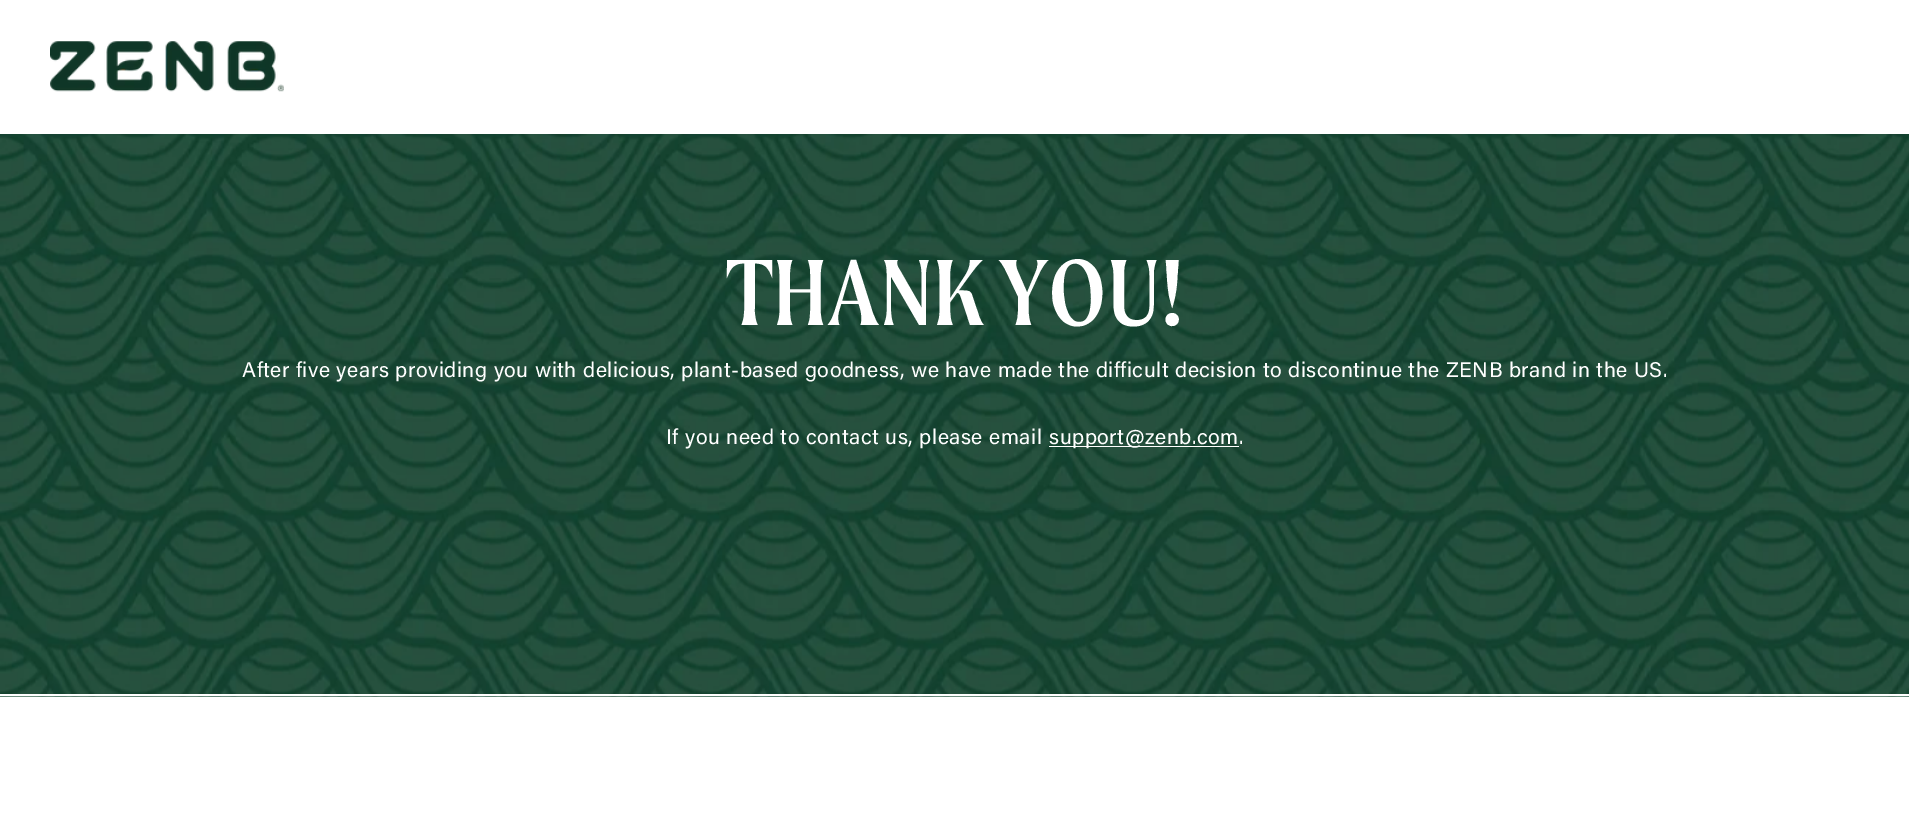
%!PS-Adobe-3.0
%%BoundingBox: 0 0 1909 836
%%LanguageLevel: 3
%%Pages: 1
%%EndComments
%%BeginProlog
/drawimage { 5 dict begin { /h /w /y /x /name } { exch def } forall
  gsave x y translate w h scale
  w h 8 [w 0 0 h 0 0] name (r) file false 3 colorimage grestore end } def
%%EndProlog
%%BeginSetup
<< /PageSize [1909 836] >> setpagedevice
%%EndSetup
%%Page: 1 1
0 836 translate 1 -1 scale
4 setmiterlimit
1 setgray
0 0 1909 836 rectfill
(images/1.raw) 50 41 234 51 drawimage
(images/2.raw) 0 134 1909 563 drawimage
1049 446 190 1 rectfill
0 694 1909 2 rectfill
/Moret-Regular [100 0 0 -100 0 0] selectfont
726 325 moveto (THANK YOU!) show
/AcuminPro-Regular [21.25 0 0 -21.25 0 0] selectfont
242 377 moveto 0.53 0 (After five years providing you with delicious, plant-based goodness, we have made the difficult decision to discontinue the ZENB brand in the US.) ashow
666 444 moveto 0.53 0 (If you need to contact us, please email) ashow
1049 444 moveto 0.53 0 (support@zenb.com.) ashow
showpage
%%EOF
